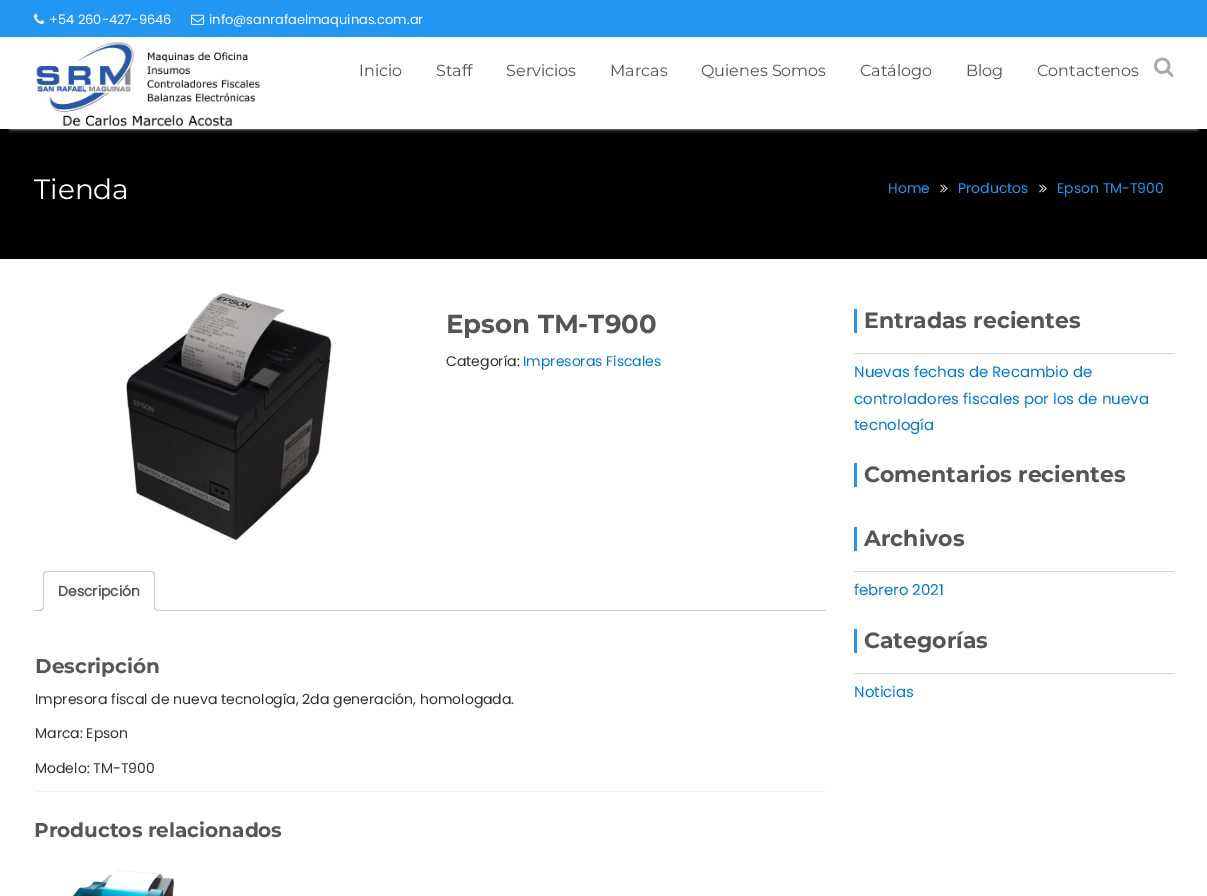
%!PS-Adobe-3.0
%%BoundingBox: 0 0 1207 896
%%LanguageLevel: 3
%%Pages: 1
%%EndComments
%%BeginProlog
/setalpha { dup .setfillconstantalpha .setstrokeconstantalpha } def
/rrect { 5 dict begin { /r /h /w /y /x } { exch def } forall
  x r add y moveto x w add y 2 copy h add r arct x w add y h add x 1 index r arct
  x y h add x y r arct x y 2 copy exch w add exch r arct closepath end } def
/softshadow { 12 dict begin { /a /b /q /h /w /y /x } { exch def } forall gsave /was 0 def
  9 -2 -9 { dup b mul 4 div /e exch def 1 sub .425 mul 2.718 exch exp 1 add a .99 .min exch div /now exch def
    1 1 now sub 1 was sub div sub setalpha /was now def
    w h .min e 2 mul add 0 gt { x e sub y e sub w e 2 mul add h e 2 mul add
      q e add b .6 mul add w h .min 2 div e add .min 0 .max rrect fill } if } for grestore end } def
/drawimage { 5 dict begin { /h /w /y /x /name } { exch def } forall
  gsave x y translate w h scale
  w h 8 [w 0 0 h 0 0] name (r) file false 3 colorimage grestore end } def
%%EndProlog
%%BeginSetup
<< /PageSize [1207 896] /PageUsesTransparency true >> setpagedevice
%%EndSetup
%%Page: 1 1
0 .pushpdf14devicefilter
0 896 translate 1 -1 scale
4 setmiterlimit
1 setgray
0 0 1207 896 rectfill
0.129 0.588 0.953 setrgbcolor
0 0 1207 37 rectfill
(images/1.raw) 34 13 11 11 drawimage
(images/2.raw) 191 14 13 11 drawimage
0 setgray
0 129 1207 130 rectfill
gsave
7 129 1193 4 rectclip
0.933 setgray
10 57 1187 72 0 2 0.9 softshadow
grestore
(images/3.raw) 36 42 224 85 drawimage
(images/4.raw) 1154 57 20 20 drawimage
(images/5.raw) 940 184 8 9 drawimage
(images/5.raw) 1039 184 8 9 drawimage
(images/6.raw) 125 289 208 254 drawimage
0.812 0.784 0.847 setrgbcolor
34 610 792 1 rectfill
1 setgray
newpath 47 571 moveto 151 571 lineto 153 571 155 573 155 575 curveto 155 611 lineto 43 611 lineto 43 575 lineto 43 573 45 571 47 571 curveto closepath fill
0.812 0.784 0.847 setrgbcolor
newpath 47 571 moveto 44 572 lineto 45 573 lineto 47 572 lineto 151 572 lineto 153 573 lineto 154 572 lineto 151 571 lineto closepath fill
newpath 155 611 moveto 155 575 lineto 155 574 154.5 573 154 572 curveto 153 573 lineto 154 573 154 574 154 575 curveto 154 610 lineto closepath fill
1 setgray
newpath 155 611 moveto 154 610 lineto 44 610 lineto 43 611 lineto closepath fill
0.812 0.784 0.847 setrgbcolor
newpath 43 611 moveto 44 610 lineto 44 575 lineto 44 574 44 573 45 573 curveto 44 572 lineto 43.5 573 43 574 43 575 curveto closepath fill
gsave
34 571 792 40 rectclip
1 setgray
newpath 41 611 moveto 41 613 lineto 44.5 613 46 611.5 46 608 curveto 44 608 lineto 43.5 609.5 42.5 610.5 41 611 curveto closepath fill
grestore
newpath 39 606 moveto 44 606 lineto 44 609.5 42.5 611 39 611 curveto closepath 39 606 moveto 43 606 lineto 43 609 42 610 39 610 curveto closepath eofill
gsave
34 571 792 40 rectclip
1 setgray
newpath 152 608 moveto 152 611.5 153.5 613 157 613 curveto 157 611 lineto 155.5 610.5 154.5 609.5 154 608 curveto closepath fill
grestore
newpath 154 606 moveto 159 606 lineto 159 611 lineto 156.5 611 154 610 154 607 curveto closepath 155 606 moveto 159 606 lineto 159 610 lineto 157 610 155 609.5 155 607 curveto closepath eofill
0 setgray
34 635 792 157 4 0.5 0.05 softshadow
1 setgray
34 634 792 157 4 rrect fill
(images/7.raw) 73 870 102 26 drawimage
0.129 0.588 0.953 setrgbcolor
854 309 3 24 rectfill
0.843 setgray
854 353 320 1 rectfill
0.129 0.588 0.953 setrgbcolor
854 463 3 24 rectfill
854 527 3 24 rectfill
0.843 setgray
854 571 320 1 rectfill
0.129 0.588 0.953 setrgbcolor
854 629 3 24 rectfill
0.843 setgray
854 673 320 1 rectfill
/Poppins-Regular [13 0 0 -13 0 0] selectfont
1 setgray
49 24 moveto (+54 260-427-9646) show
209 24 moveto (info@sanrafaelmaquinas.com.ar) show
/Montserrat-Regular [16 0 0 -16 0 0] selectfont
0.333 setgray
359 76 moveto (Inicio) show
436 76 moveto (Staff) show
506 76 moveto (Servicios) show
610 76 moveto (Marcas) show
701 76 moveto (Quienes Somos) show
860 76 moveto (Catálogo) show
966 76 moveto (Blog) show
1037 76 moveto (Contactenos) show
/Montserrat-Regular [28 0 0 -28 0 0] selectfont
1 setgray
34 199 moveto (Tienda) show
/Poppins-Regular [14 0 0 -14 0 0] selectfont
0.129 0.588 0.953 setrgbcolor
888 193 moveto (Home) show
958 193 moveto (Productos) show
1057 193 moveto (Epson TM-T900) show
/Montserrat-Bold [26 0 0 -26 0 0] selectfont
0.333 setgray
446 333 moveto (Epson TM-T900) show
/Poppins-Regular [14 0 0 -14 0 0] selectfont
0.2 setgray
446 366 moveto (Categoría:) show
0 0.478 0.8 setrgbcolor
523 366 moveto (Impresoras Fiscales) show
/Poppins-Bold [14 0 0 -14 0 0] selectfont
0.333 setgray
58 596 moveto (Descripción) show
/Montserrat-Bold [20 0 0 -20 0 0] selectfont
35 673 moveto (Descripción) show
/Poppins-Regular [14 0 0 -14 0 0] selectfont
0.2 setgray
35 704 moveto (Impresora fiscal de nueva tecnología, 2da generación, homologada.) show
35 738 moveto (Marca: Epson) show
35 773 moveto (Modelo: TM-T900) show
/Montserrat-Bold [20 0 0 -20 0 0] selectfont
0.333 setgray
34 837 moveto (Productos relacionados) show
/Montserrat-Bold [22 0 0 -22 0 0] selectfont
864 328 moveto (Entradas recientes) show
/Poppins-Regular [15 0 0 -15 0 0] selectfont
0 0.478 0.8 setrgbcolor
854 377 moveto (Nuevas fechas de Recambio de) show
854 404 moveto (controladores fiscales por los de nueva) show
854 430 moveto (tecnología) show
/Montserrat-Bold [22 0 0 -22 0 0] selectfont
0.333 setgray
864 482 moveto (Comentarios recientes) show
864 546 moveto (Archivos) show
/Poppins-Regular [15 0 0 -15 0 0] selectfont
0 0.478 0.8 setrgbcolor
854 595 moveto (febrero 2021) show
/Montserrat-Bold [22 0 0 -22 0 0] selectfont
0.333 setgray
864 648 moveto (Categorías) show
/Poppins-Regular [15 0 0 -15 0 0] selectfont
0 0.478 0.8 setrgbcolor
854 697 moveto (Noticias) show
.poppdf14devicefilter showpage
%%EOF
